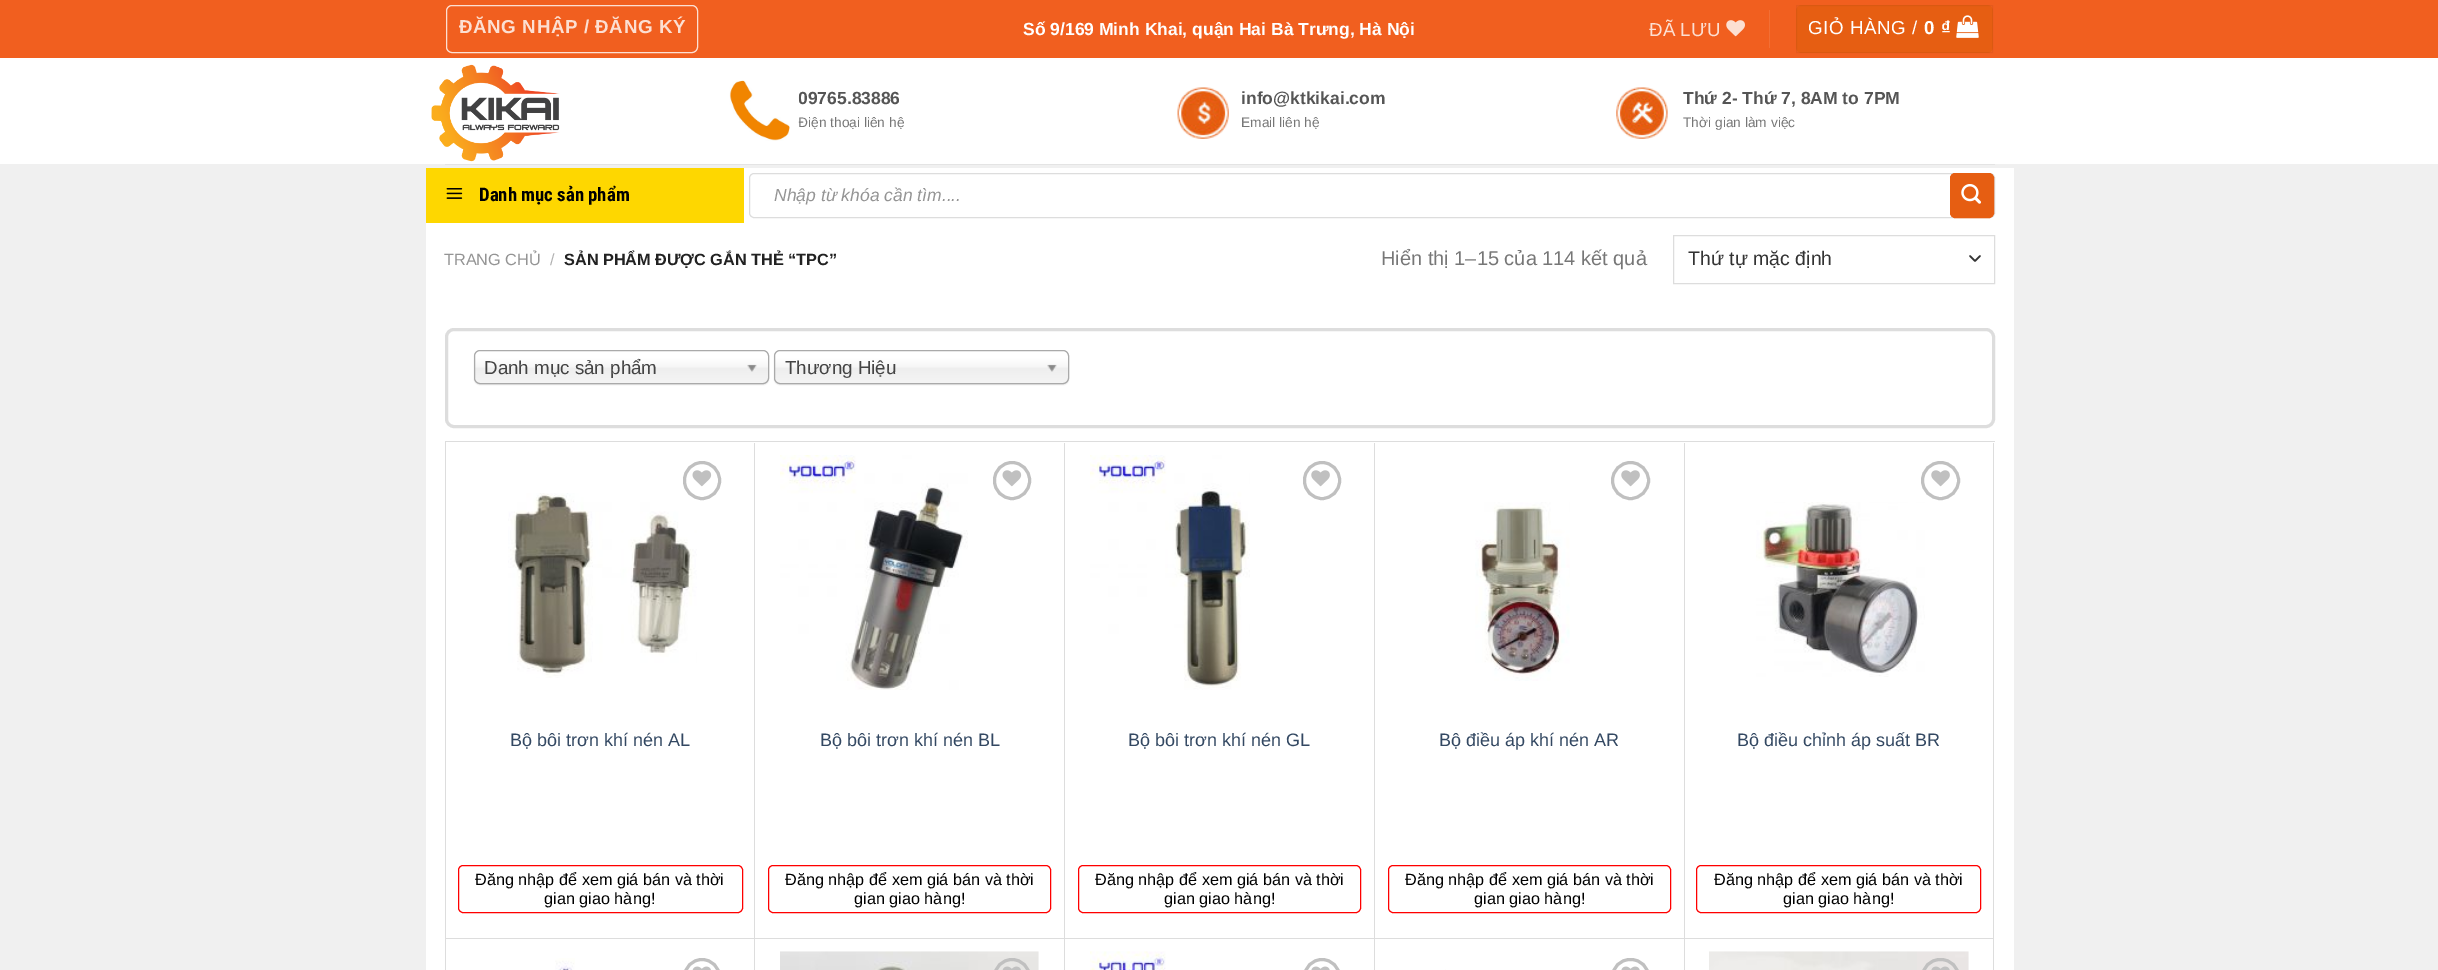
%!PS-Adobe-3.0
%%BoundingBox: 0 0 2438 970
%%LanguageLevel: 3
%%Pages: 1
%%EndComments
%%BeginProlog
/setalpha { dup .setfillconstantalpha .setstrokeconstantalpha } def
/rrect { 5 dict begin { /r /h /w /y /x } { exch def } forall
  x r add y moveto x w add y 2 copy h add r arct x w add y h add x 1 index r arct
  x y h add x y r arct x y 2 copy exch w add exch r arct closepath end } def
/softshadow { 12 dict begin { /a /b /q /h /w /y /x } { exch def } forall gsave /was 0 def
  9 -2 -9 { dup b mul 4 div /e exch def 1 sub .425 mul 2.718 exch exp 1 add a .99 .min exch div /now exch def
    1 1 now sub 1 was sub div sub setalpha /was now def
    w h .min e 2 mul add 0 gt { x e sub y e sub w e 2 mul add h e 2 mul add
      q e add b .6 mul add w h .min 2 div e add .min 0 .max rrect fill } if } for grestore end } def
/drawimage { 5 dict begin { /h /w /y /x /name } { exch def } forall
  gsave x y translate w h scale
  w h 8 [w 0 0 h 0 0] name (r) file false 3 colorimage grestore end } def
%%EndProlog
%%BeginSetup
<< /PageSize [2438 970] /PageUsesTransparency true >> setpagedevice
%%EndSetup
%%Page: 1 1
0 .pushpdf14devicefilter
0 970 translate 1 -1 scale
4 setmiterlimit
0.941 setgray
0 0 2438 970 rectfill
1 setgray
0 58 2438 106 rectfill
0.945 0.373 0.122 setrgbcolor
0 0 2438 58 rectfill
0.988 0.875 0.824 setrgbcolor
446.5 5.5 251 47 5.5 rrect stroke
(images/1.raw) 1726 20 19 17 drawimage
0.949 0.435 0.208 setrgbcolor
1769 10 1 38 rectfill
0.902 0.369 0.071 setrgbcolor
1796 5 197 48 6 rrect fill
0.05 setalpha
0 setgray
1796.5 5.5 196 47 rectstroke
1 setalpha
(images/2.raw) 1956 15 23 23 drawimage
(images/3.raw) 431 64 129 98 drawimage
(images/5.raw) 1177 87 52 52 drawimage
(images/6.raw) 1616 87 52 52 drawimage
0.894 setgray
445 164 1550 1 rectfill
0.996 0.843 0 setrgbcolor
426 168 318 55 rectfill
(images/7.raw) 446 188 17 11 drawimage
1 setgray
744 168 1270 55 rectfill
0.867 setgray
749.5 173.5 1245 44 4.5 rrect stroke
0.902 0.369 0.071 setrgbcolor
1950.5 173.5 43 44 4.5 rrect gsave fill grestore
stroke
(images/8.raw) 1961 184 20 20 drawimage
1 setgray
426 223 1588 747 rectfill
0.2 setgray
1.7 setlinewidth
1 setlinecap
1 setlinejoin
newpath 1970 256 moveto 1975 261 lineto 1980 256 lineto stroke
0.867 setgray
1 setlinewidth
0 setlinecap
0 setlinejoin
1673.5 235.5 321 48 rectstroke
3 setlinewidth
446.5 329.5 1547 97 7.5 rrect stroke
0 setgray
474 351 295 34 6 0.5 0.1 softshadow
gsave 475 351 293 32 5 rrect clip newpath
<< /ShadingType 2 /ColorSpace /DeviceRGB /Coords [621 351 621 383] /Extend [true true] /Function << /FunctionType 3 /Domain [0 1] /Functions [<< /FunctionType 2 /Domain [0 1] /C0 [1 1 1] /C1 [1 1 1] /N 1 >> << /FunctionType 2 /Domain [0 1] /C0 [1 1 1] /C1 [0.965 0.965 0.965] /N 1 >> << /FunctionType 2 /Domain [0 1] /C0 [0.965 0.965 0.965] /C1 [0.933 0.933 0.933] /N 1 >> << /FunctionType 2 /Domain [0 1] /C0 [0.933 0.933 0.933] /C1 [0.957 0.957 0.957] /N 1 >>] /Bounds [0.2 0.5 0.52] /Encode [0 1 0 1 0 1 0 1] >> >> shfill grestore
0.667 setgray
1 setlinewidth
474.5 350.5 294 33 5.5 rrect stroke
(images/9.raw) 747 364 10 8 drawimage
0 setgray
774 351 295 34 6 0.5 0.1 softshadow
gsave 775 351 293 32 5 rrect clip newpath
<< /ShadingType 2 /ColorSpace /DeviceRGB /Coords [921 351 921 383] /Extend [true true] /Function << /FunctionType 3 /Domain [0 1] /Functions [<< /FunctionType 2 /Domain [0 1] /C0 [1 1 1] /C1 [1 1 1] /N 1 >> << /FunctionType 2 /Domain [0 1] /C0 [1 1 1] /C1 [0.965 0.965 0.965] /N 1 >> << /FunctionType 2 /Domain [0 1] /C0 [0.965 0.965 0.965] /C1 [0.933 0.933 0.933] /N 1 >> << /FunctionType 2 /Domain [0 1] /C0 [0.933 0.933 0.933] /C1 [0.957 0.957 0.957] /N 1 >>] /Bounds [0.2 0.5 0.52] /Encode [0 1 0 1 0 1 0 1] >> >> shfill grestore
0.667 setgray
774.5 350.5 294 33 5.5 rrect stroke
(images/9.raw) 1047 364 10 8 drawimage
0.867 setgray
445 441 1550 1 rectfill
445 441 1 529 rectfill
754 443 1 527 rectfill
446 938 309 1 rectfill
(images/11.raw) 508 493 189 185 drawimage
0.753 setgray
3 setlinewidth
684.5 462.5 35 36 17.5 rrect stroke
(images/10.raw) 692 470 20 17 drawimage
1 0 0 setrgbcolor
1 setlinewidth
458.5 865.5 284 47 4.5 rrect stroke
0.867 setgray
1064 443 1 527 rectfill
755 938 310 1 rectfill
(images/12.raw) 780 455 188 235 drawimage
0.753 setgray
3 setlinewidth
994.5 462.5 35 36 17.5 rrect stroke
(images/10.raw) 1002 470 20 17 drawimage
1 0 0 setrgbcolor
1 setlinewidth
768.5 865.5 282 47 4.5 rrect stroke
0.867 setgray
1374 443 1 527 rectfill
1065 938 310 1 rectfill
(images/13.raw) 1090 455 160 235 drawimage
0.753 setgray
3 setlinewidth
1304.5 462.5 35 36 17.5 rrect stroke
(images/14.raw) 1311 470 19 17 drawimage
1 0 0 setrgbcolor
1 setlinewidth
1078.5 865.5 282 47 4.5 rrect stroke
0.867 setgray
1684 443 1 527 rectfill
1375 938 310 1 rectfill
0.753 setgray
3 setlinewidth
newpath 1630.5 480.5 18 0 360 arc closepath stroke
(images/14.raw) 1621 470 19 17 drawimage
(images/15.raw) 1475 502 95 179 drawimage
1 0 0 setrgbcolor
1 setlinewidth
1388.5 865.5 282 47 4.5 rrect stroke
0.867 setgray
1993 443 1 527 rectfill
1685 938 309 1 rectfill
0.753 setgray
3 setlinewidth
newpath 1940.5 480.5 18 0 360 arc closepath stroke
(images/14.raw) 1931 470 19 17 drawimage
(images/16.raw) 1756 502 169 175 drawimage
1 0 0 setrgbcolor
1 setlinewidth
1696.5 865.5 284 47 4.5 rrect stroke
(images/17.raw) 555 958 20 12 drawimage
0.753 setgray
3 setlinewidth
684.5 959.5 35 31 17.5 rrect stroke
(images/18.raw) 692 966 19 4 drawimage
(images/19.raw) 780 951 259 19 drawimage
994.5 959.5 35 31 17.5 rrect stroke
(images/20.raw) 1002 966 19 4 drawimage
(images/21.raw) 1090 951 76 19 drawimage
1304.5 959.5 35 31 17.5 rrect stroke
(images/22.raw) 1311 966 19 4 drawimage
0.996 0.996 0.98 setrgbcolor
1445 969 1 1 rectfill
0.753 setgray
1612.5 959.5 36 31 17.5 rrect stroke
(images/22.raw) 1621 966 19 4 drawimage
(images/23.raw) 1709 951 260 19 drawimage
1922.5 959.5 36 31 17.5 rrect stroke
(images/24.raw) 1931 966 19 4 drawimage
/LiberationSans-Bold [18.75 0 0 -18.75 0 0] selectfont
0.988 0.875 0.824 setrgbcolor
459 33 moveto 0.6 0 (ĐĂNG NHẬP / ĐĂNG KÝ) ashow
/LiberationSans-Bold [17.5 0 0 -17.5 0 0] selectfont
1 setgray
1023 35 moveto (Số 9/169 Minh Khai, quận Hai Bà Trưng, Hà Nội) show
/LiberationSans-Regular [18.75 0 0 -18.75 0 0] selectfont
0.988 0.875 0.824 setrgbcolor
1649 36 moveto (ĐÃ LƯU) show
1 setgray
1808 34 moveto 0.6 0 (GIỎ HÀNG /) ashow
/LiberationSans-Bold [18.75 0 0 -18.75 0 0] selectfont
1924 34 moveto 0.6 0 (0 ₫) ashow
/LiberationSans-Bold [17.5 0 0 -17.5 0 0] selectfont
0.333 setgray
798 104 moveto (09765.83886) show
/LiberationSans-Regular [13.75 0 0 -13.75 0 0] selectfont
0.467 setgray
798 127 moveto (Điện thoại liên hệ) show
(images/4.raw) 729 80 70 61 drawimage
/LiberationSans-Bold [17.5 0 0 -17.5 0 0] selectfont
0.333 setgray
1241 104 moveto (info@ktkikai.com) show
/LiberationSans-Regular [13.75 0 0 -13.75 0 0] selectfont
0.467 setgray
1241 127 moveto (Email liên hệ) show
/LiberationSans-Bold [17.5 0 0 -17.5 0 0] selectfont
0.333 setgray
1683 104 moveto (Thứ 2- Thứ 7, 8AM to 7PM) show
/LiberationSans-Regular [13.75 0 0 -13.75 0 0] selectfont
0.467 setgray
1683 127 moveto (Thời gian làm việc) show
/RobotoCondensed-Bold [18.75 0 0 -18.75 0 0] selectfont
0 setgray
479 201 moveto (Danh mục sản phẩm) show
/LiberationSans-Italic [17.5 0 0 -17.5 0 0] selectfont
0.58 setgray
774 201 moveto (Nhập từ khóa cần tìm....) show
/LiberationSans-Regular [16.25 0 0 -16.25 0 0] selectfont
444 265 moveto (TRANG CHỦ) show
0.698 setgray
550 265 moveto (/) show
/LiberationSans-Bold [16.25 0 0 -16.25 0 0] selectfont
0.133 setgray
564 265 moveto (SẢN PHẨM ĐƯỢC GẮN THẺ “TPC”) show
/LiberationSans-Regular [20 0 0 -20 0 0] selectfont
0.467 setgray
1381 265 moveto (Hiển thị 1–15 của 114 kết quả) show
/LiberationSans-Regular [19.5 0 0 -19.5 0 0] selectfont
0.2 setgray
1688 265 moveto (Thứ tự mặc định) show
/LiberationSans-Regular [18.75 0 0 -18.75 0 0] selectfont
0.267 setgray
484 374 moveto (Danh mục sản phẩm) show
785 374 moveto (Thương Hiệu) show
/LiberationSans-Regular [18 0 0 -18 0 0] selectfont
0.2 0.282 0.384 setrgbcolor
510 746 moveto (Bộ bôi trơn khí nén AL) show
/LiberationSans-Regular [16.25 0 0 -16.25 0 0] selectfont
0 setgray
475 885 moveto (Đăng nhập để xem giá bán và thời) show
544 904 moveto (gian giao hàng!) show
/LiberationSans-Regular [18 0 0 -18 0 0] selectfont
0.2 0.282 0.384 setrgbcolor
820 746 moveto (Bộ bôi trơn khí nén BL) show
/LiberationSans-Regular [16.25 0 0 -16.25 0 0] selectfont
0 setgray
785 885 moveto (Đăng nhập để xem giá bán và thời) show
854 904 moveto (gian giao hàng!) show
/LiberationSans-Regular [18 0 0 -18 0 0] selectfont
0.2 0.282 0.384 setrgbcolor
1128 746 moveto (Bộ bôi trơn khí nén GL) show
/LiberationSans-Regular [16.25 0 0 -16.25 0 0] selectfont
0 setgray
1095 885 moveto (Đăng nhập để xem giá bán và thời) show
1164 904 moveto (gian giao hàng!) show
/LiberationSans-Regular [18 0 0 -18 0 0] selectfont
0.2 0.282 0.384 setrgbcolor
1439 746 moveto (Bộ điều áp khí nén AR) show
/LiberationSans-Regular [16.25 0 0 -16.25 0 0] selectfont
0 setgray
1405 885 moveto (Đăng nhập để xem giá bán và thời) show
1474 904 moveto (gian giao hàng!) show
/LiberationSans-Regular [18 0 0 -18 0 0] selectfont
0.2 0.282 0.384 setrgbcolor
1737 746 moveto (Bộ điều chỉnh áp suất BR) show
/LiberationSans-Regular [16.25 0 0 -16.25 0 0] selectfont
0 setgray
1714 885 moveto (Đăng nhập để xem giá bán và thời) show
1783 904 moveto (gian giao hàng!) show
.poppdf14devicefilter showpage
%%EOF
